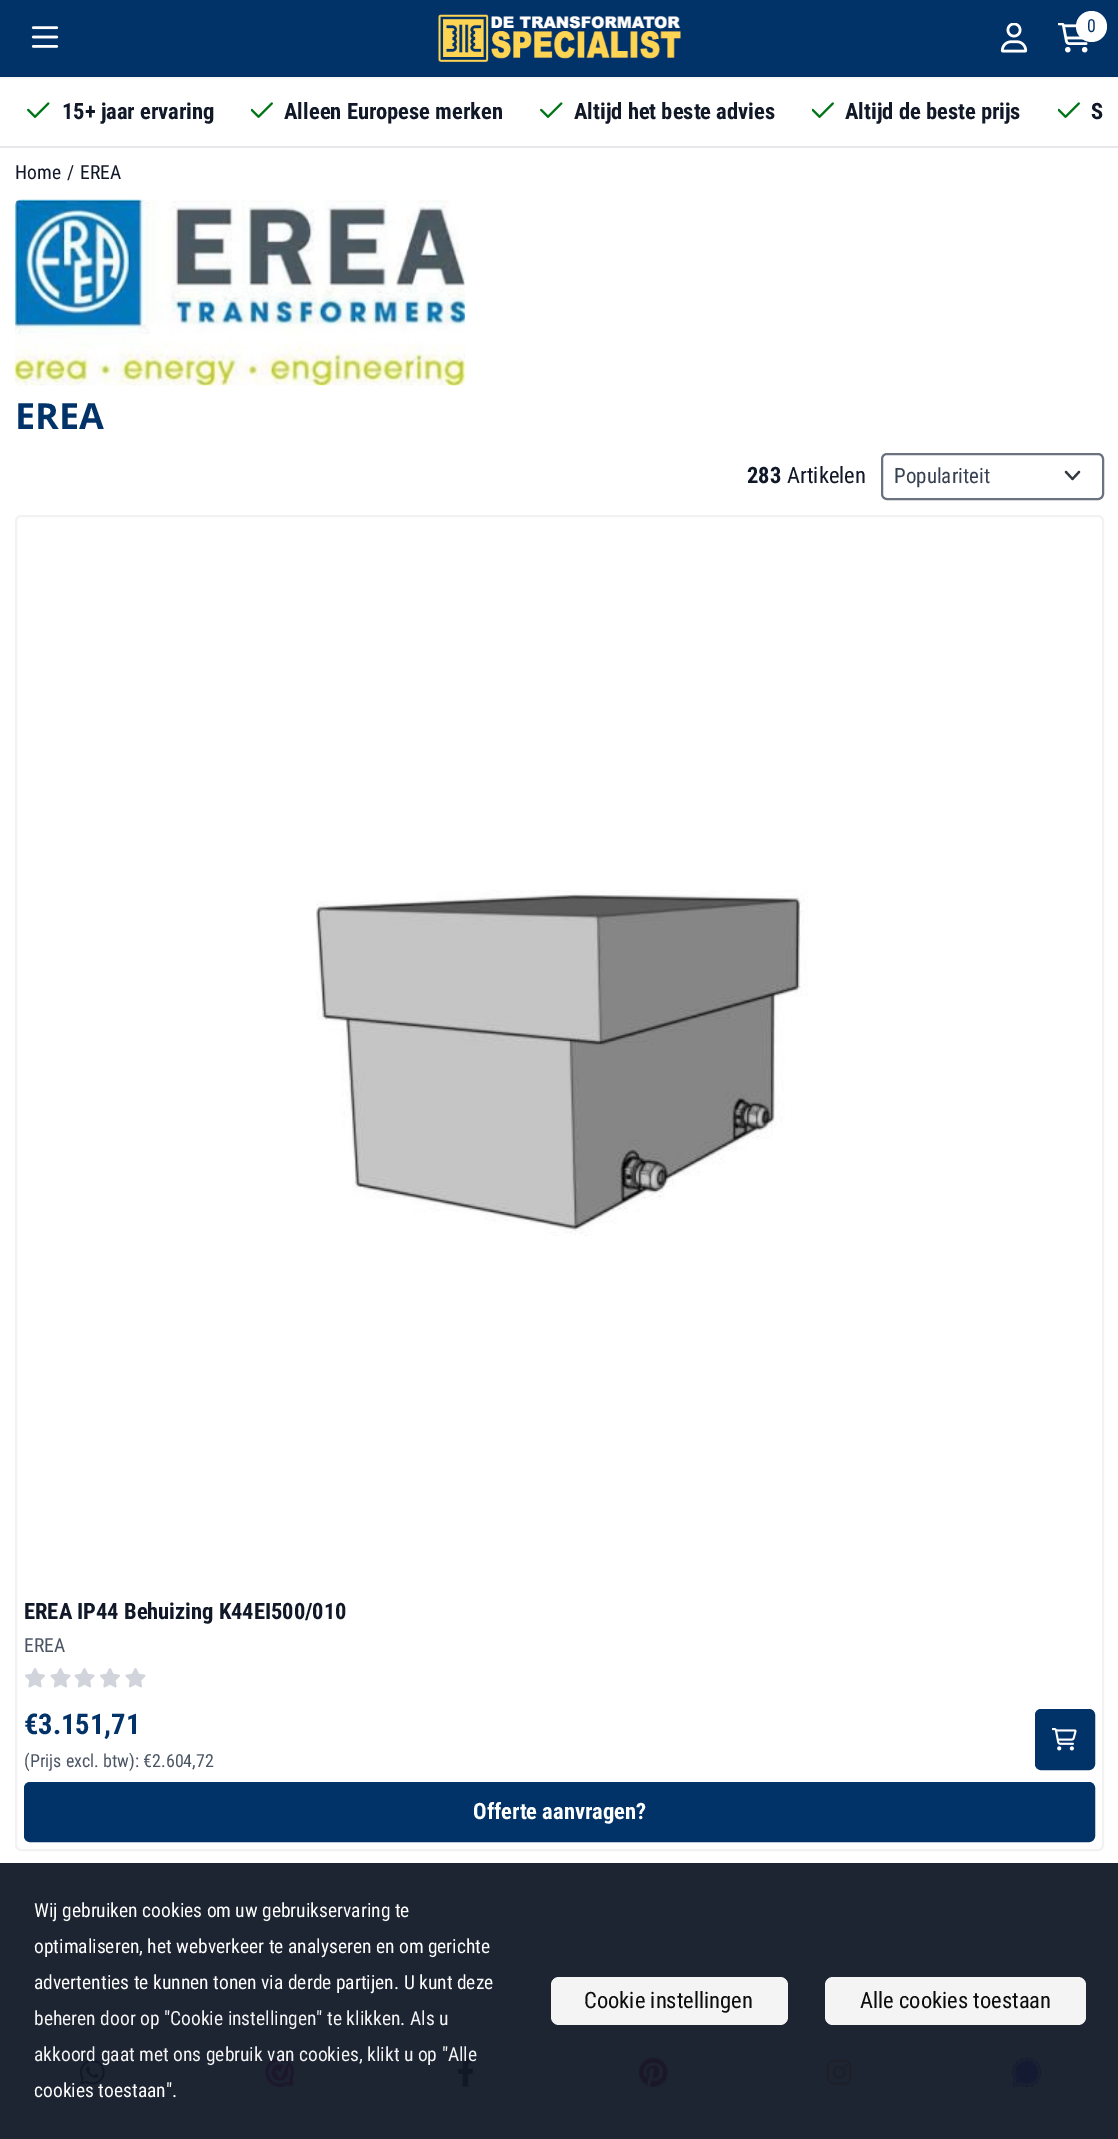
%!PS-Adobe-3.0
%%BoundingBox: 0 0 1118 2139
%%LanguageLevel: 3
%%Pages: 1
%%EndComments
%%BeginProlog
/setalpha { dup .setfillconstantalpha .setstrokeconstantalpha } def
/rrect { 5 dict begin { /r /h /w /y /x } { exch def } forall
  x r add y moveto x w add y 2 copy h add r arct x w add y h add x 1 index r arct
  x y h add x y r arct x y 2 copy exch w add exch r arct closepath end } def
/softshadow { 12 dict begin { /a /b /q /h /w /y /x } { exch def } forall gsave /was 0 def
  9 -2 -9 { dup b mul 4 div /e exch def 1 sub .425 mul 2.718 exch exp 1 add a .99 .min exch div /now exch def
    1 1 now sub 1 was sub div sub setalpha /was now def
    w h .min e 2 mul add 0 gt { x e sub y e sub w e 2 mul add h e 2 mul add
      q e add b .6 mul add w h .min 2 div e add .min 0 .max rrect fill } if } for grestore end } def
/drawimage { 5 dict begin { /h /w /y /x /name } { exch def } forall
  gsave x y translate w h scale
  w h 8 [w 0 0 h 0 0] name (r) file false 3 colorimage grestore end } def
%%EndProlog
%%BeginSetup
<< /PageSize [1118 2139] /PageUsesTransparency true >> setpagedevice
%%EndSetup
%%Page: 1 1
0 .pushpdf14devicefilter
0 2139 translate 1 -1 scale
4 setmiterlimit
1 setgray
0 0 1118 2139 rectfill
0.114 0.141 0.196 setrgbcolor
0 1863 1118 276 rectfill
0 setgray
0 2 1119 76 0 1.5 0.05 softshadow
0.004 0.2 0.412 setrgbcolor
0 0 1118 75 rectfill
0.004 0.188 0.392 setrgbcolor
0 75 1118 2 rectfill
(images/1.raw) 31 26 28 22 drawimage
(images/2.raw) 438 14 243 48 drawimage
(images/3.raw) 1000 23 28 30 drawimage
(images/4.raw) 1058 23 30 30 drawimage
1 setgray
newpath 1091.5 26.5 15.5 0 360 arc closepath fill
(images/5.raw) 27 102 23 16 drawimage
(images/6.raw) 251 102 22 16 drawimage
(images/5.raw) 540 102 23 16 drawimage
(images/6.raw) 812 102 22 16 drawimage
(images/6.raw) 1058 102 22 16 drawimage
0.898 0.906 0.922 setrgbcolor
0 146 1118 2 rectfill
(images/7.raw) 15 199 450 187 drawimage
0.204 0.227 0.251 setrgbcolor
2.2 setlinewidth
1 setlinecap
1 setlinejoin
newpath 1066 472 moveto 1072.5 479 lineto 1079 472 lineto stroke
0.42 0.447 0.502 setrgbcolor
2 setlinewidth
0 setlinecap
0 setlinejoin
882 454 221 45 5 rrect stroke
0.949 setgray
16 516 1087 1334 5 rrect stroke
(images/8.raw) 316 890 492 346 drawimage
(images/9.raw) 25 1668 20 20 drawimage
(images/10.raw) 50 1668 21 20 drawimage
(images/10.raw) 74 1668 21 20 drawimage
(images/9.raw) 100 1668 20 20 drawimage
(images/10.raw) 125 1668 21 20 drawimage
0.004 0.2 0.412 setrgbcolor
1036 1710 58 59 5 rrect gsave fill grestore
stroke
(images/11.raw) 1052 1728 25 23 drawimage
25 1783 1069 58 5 rrect gsave fill grestore
stroke
0.957 0.957 0.961 setrgbcolor
551 1977 237 48 8 rrect fill
825 1977 261 48 8 rrect fill
(images/12.raw) 79 2059 26 26 drawimage
(images/13.raw) 265 2057 29 30 drawimage
(images/14.raw) 458 2058 16 29 drawimage
(images/15.raw) 639 2057 29 30 drawimage
(images/16.raw) 826 2059 26 26 drawimage
(images/17.raw) 1012 2057 29 30 drawimage
/RobotoCondensed-Regular [18 0 0 -18 0 0] selectfont
0.004 0.2 0.412 setrgbcolor
1087 32 moveto (0) show
/RobotoCondensed-Bold [22.5 0 0 -22.5 0 0] selectfont
0.067 0.094 0.153 setrgbcolor
62 119 moveto (15+ jaar ervaring) show
284 119 moveto (Alleen Europese merken) show
574 119 moveto (Altijd het beste advies) show
845 119 moveto (Altijd de beste prijs) show
1091 119 moveto (S) show
/RobotoCondensed-Regular [19.5 0 0 -19.5 0 0] selectfont
15 179 moveto (Home) show
67 179 moveto (/) show
80 179 moveto (EREA) show
/OpenSans-Bold [36 0 0 -36 0 0] selectfont
0.004 0.2 0.412 setrgbcolor
15 429 moveto (EREA) show
/RobotoCondensed-Bold [22.5 0 0 -22.5 0 0] selectfont
0.067 0.094 0.153 setrgbcolor
747 483 moveto (283) show
/RobotoCondensed-Regular [22.5 0 0 -22.5 0 0] selectfont
787 483 moveto (Artikelen) show
/RobotoCondensed-Regular [21 0 0 -21 0 0] selectfont
0.216 0.255 0.318 setrgbcolor
894 483 moveto (Populariteit) show
/RobotoCondensed-Bold [22.5 0 0 -22.5 0 0] selectfont
0.067 0.094 0.153 setrgbcolor
24 1619 moveto (EREA IP44 Behuizing K44EI500/010) show
/RobotoCondensed-Regular [19.5 0 0 -19.5 0 0] selectfont
0.294 0.333 0.388 setrgbcolor
24 1652 moveto (EREA) show
/RobotoCondensed-Bold [28.5 0 0 -28.5 0 0] selectfont
0.004 0.2 0.412 setrgbcolor
24 1734 moveto (€3.151,71) show
/RobotoCondensed-Regular [18 0 0 -18 0 0] selectfont
0.294 0.333 0.388 setrgbcolor
24 1767 moveto (\(Prijs excl. btw\): €2.604,72) show
/RobotoCondensed-Bold [22.5 0 0 -22.5 0 0] selectfont
1 setgray
473 1819 moveto (Offerte aanvragen?) show
/RobotoCondensed-Regular [19.5 0 0 -19.5 0 0] selectfont
34 1917 moveto (Wij gebruiken cookies om uw gebruikservaring te) show
34 1953 moveto (optimaliseren, het webverkeer te analyseren en om gerichte) show
34 1989 moveto (advertenties te kunnen tonen via derde partijen. U kunt deze) show
0.957 0.957 0.961 setrgbcolor
34 2025 moveto (beheren door op "Cookie instellingen" te klikken. Als u) show
34 2061 moveto (akkoord gaat met ons gebruik van cookies, klikt u op "Alle) show
1 setgray
34 2097 moveto (cookies toestaan".) show
/RobotoCondensed-Regular [22.5 0 0 -22.5 0 0] selectfont
0.051 setgray
584 2008 moveto (Cookie instellingen) show
860 2008 moveto (Alle cookies toestaan) show
.poppdf14devicefilter showpage
%%EOF
